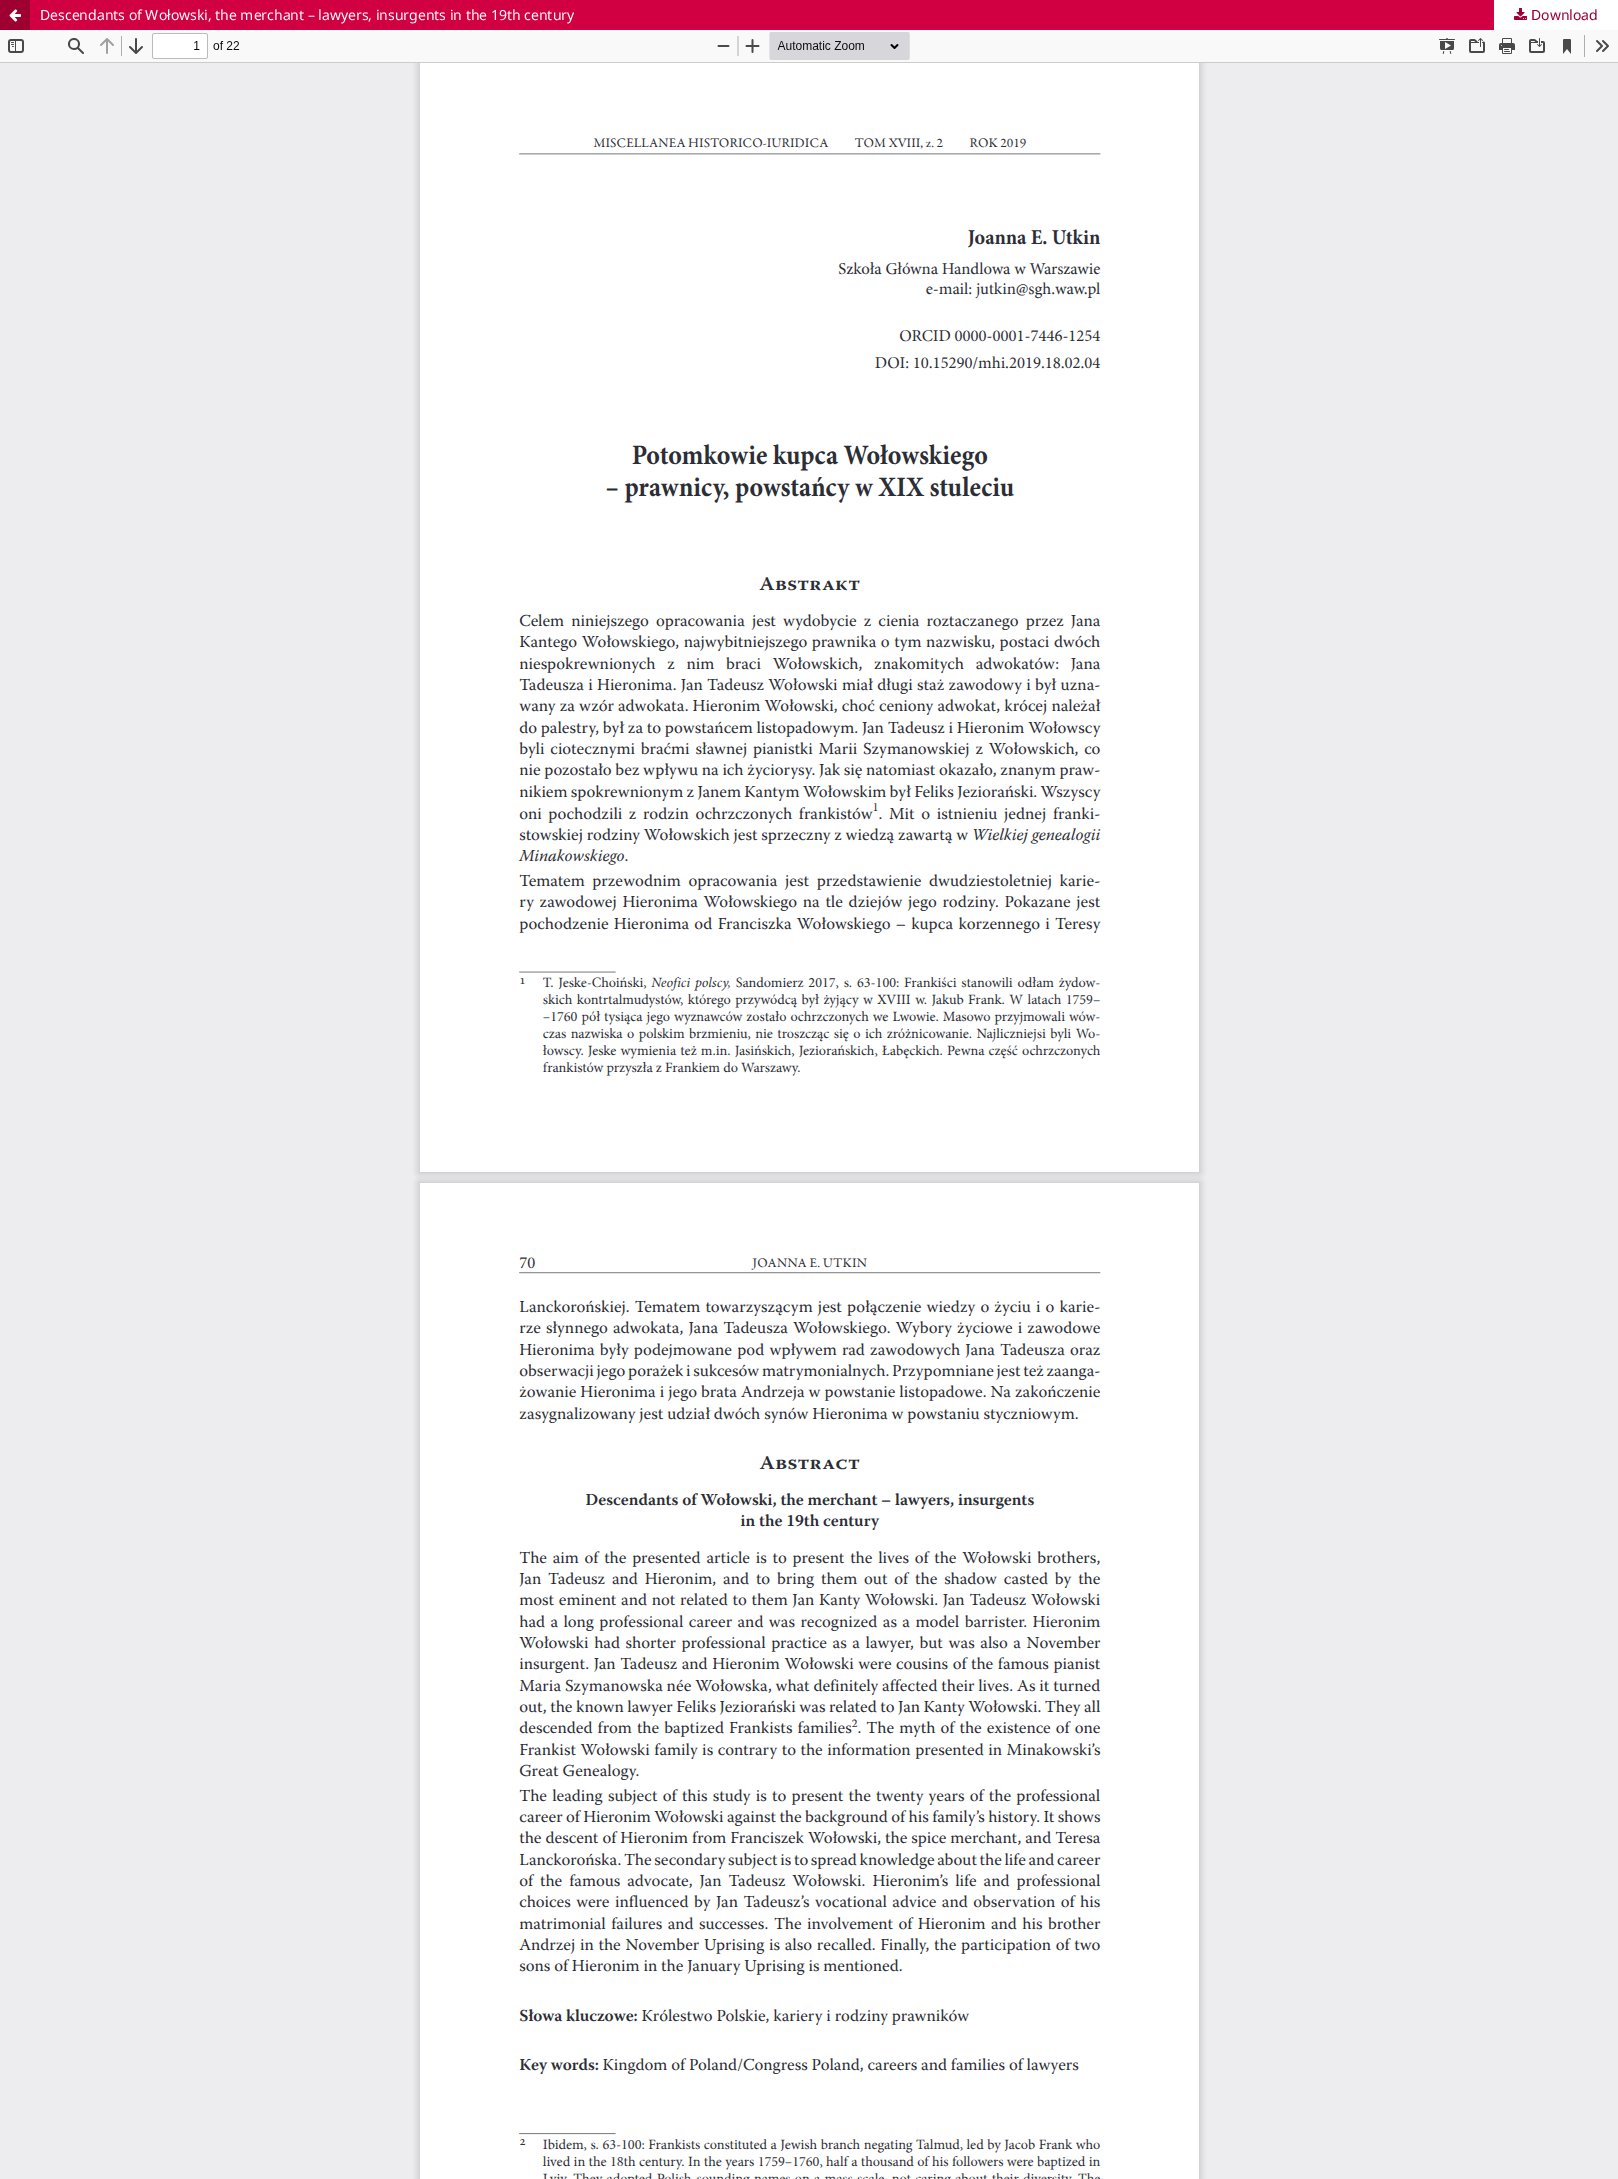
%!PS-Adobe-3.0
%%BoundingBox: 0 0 1618 2179
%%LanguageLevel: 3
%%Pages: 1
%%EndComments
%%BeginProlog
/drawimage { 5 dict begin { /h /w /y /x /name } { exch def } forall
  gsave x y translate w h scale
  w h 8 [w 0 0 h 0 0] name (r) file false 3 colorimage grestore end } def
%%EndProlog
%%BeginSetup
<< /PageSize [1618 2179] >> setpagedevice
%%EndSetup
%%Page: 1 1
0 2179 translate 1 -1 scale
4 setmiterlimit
1 setgray
0 0 1618 2179 rectfill
0.82 0 0.259 setrgbcolor
30 0 1464 30 rectfill
0.62 0 0.196 setrgbcolor
0 0 30 30 rectfill
(images/1.raw) 9 9 12 13 drawimage
(images/2.raw) 1514 8 13 12 drawimage
(images/3.raw) 0 30 1618 2149 drawimage
/NotoSans-Regular [14 0 0 -14 0 0] selectfont
1 setgray
40 20 moveto (Descendants of Wołowski, the merchant – lawyers, insurgents in the 19th century) show
0.62 0 0.196 setrgbcolor
1531 20 moveto (Download) show
showpage
%%EOF
